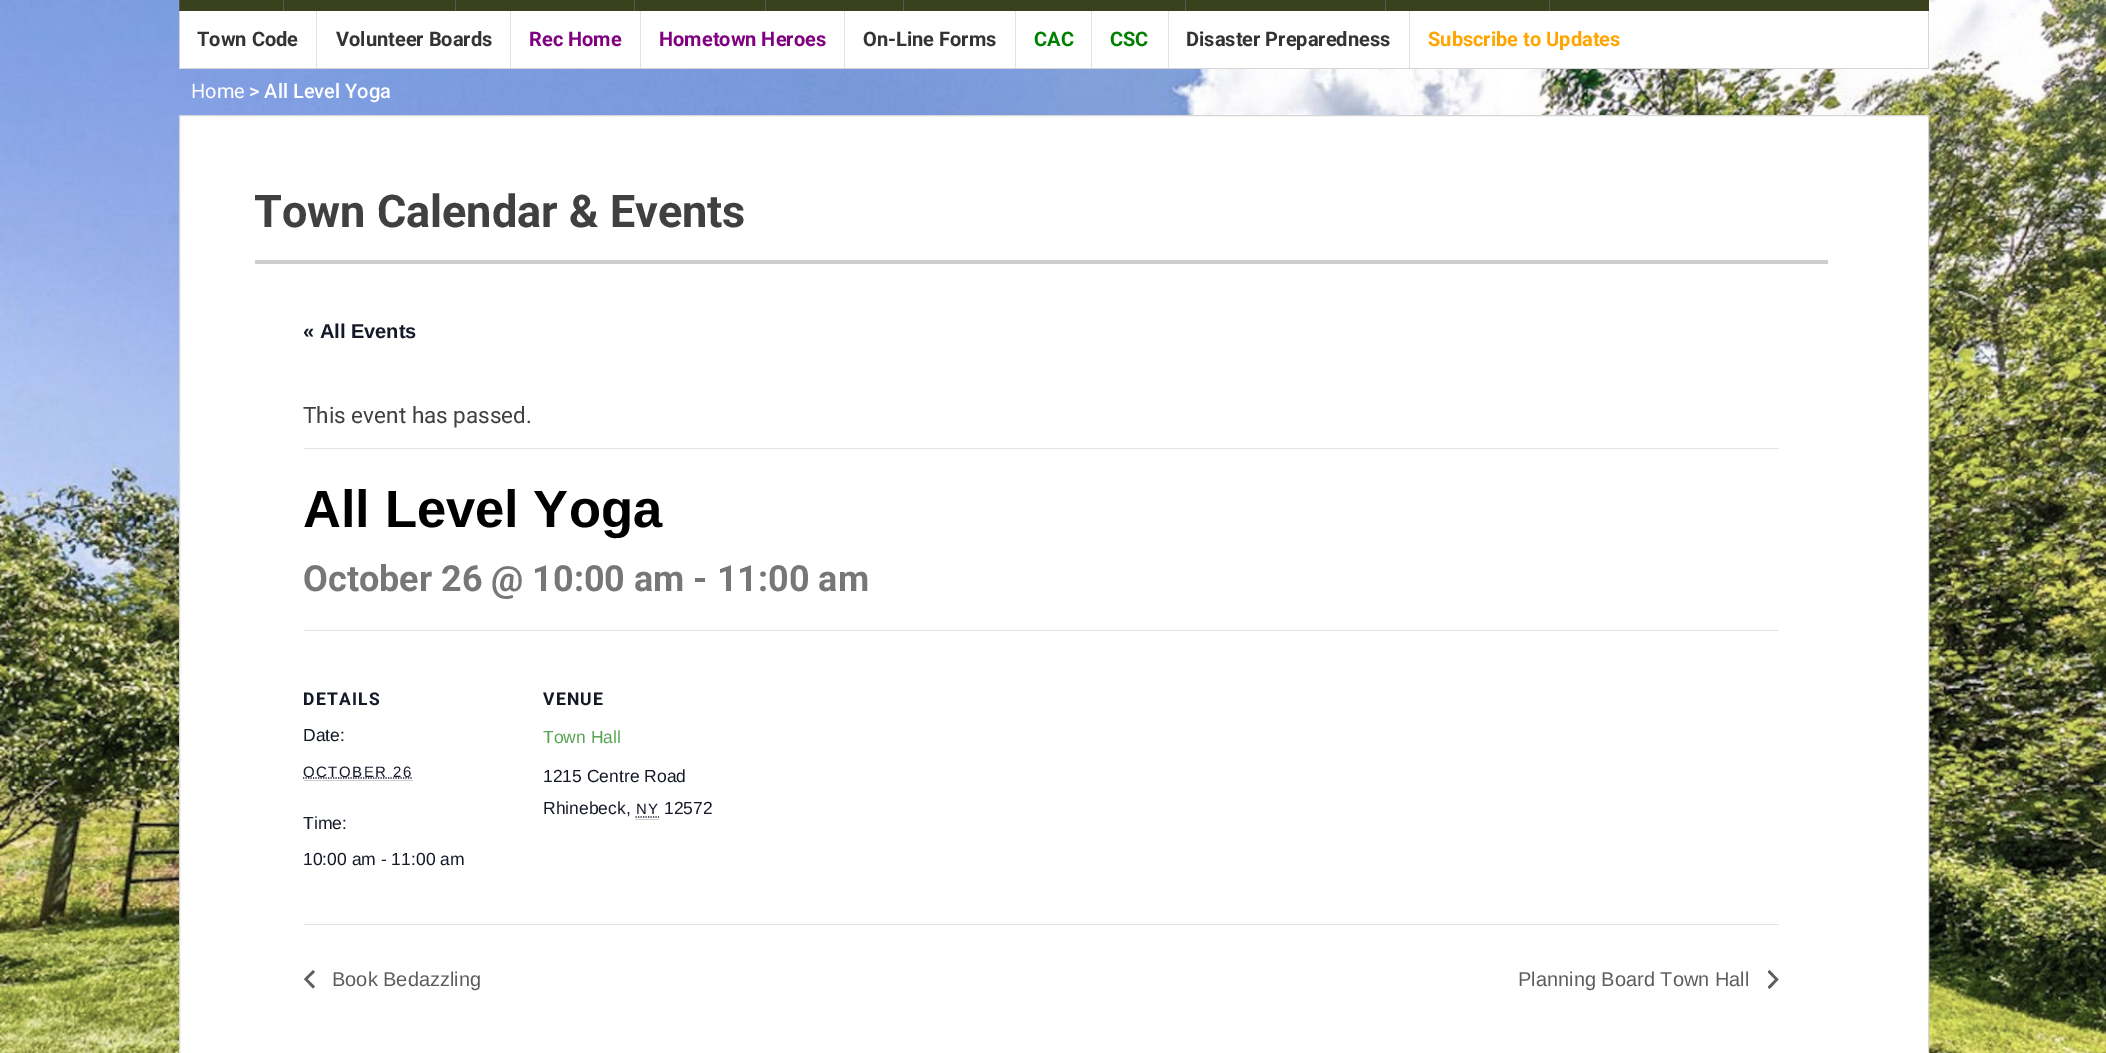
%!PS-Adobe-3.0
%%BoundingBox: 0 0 2106 1053
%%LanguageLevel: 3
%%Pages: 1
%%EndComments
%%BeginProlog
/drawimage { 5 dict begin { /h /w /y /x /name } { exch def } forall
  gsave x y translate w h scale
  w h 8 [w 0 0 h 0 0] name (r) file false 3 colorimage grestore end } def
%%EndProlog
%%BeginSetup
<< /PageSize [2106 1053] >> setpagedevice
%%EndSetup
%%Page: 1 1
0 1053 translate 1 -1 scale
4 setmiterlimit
1 setgray
0 0 2106 1053 rectfill
(images/1.raw) 0 0 2106 1053 drawimage
0.227 0.255 0.114 setrgbcolor
180 0 1749 11 rectfill
0.345 setgray
179 0 1 11 rectfill
283 0 1 11 rectfill
455 0 1 11 rectfill
634 0 1 11 rectfill
765 0 1 11 rectfill
903 0 1 11 rectfill
1185 0 1 11 rectfill
1385 0 1 11 rectfill
1549 0 1 11 rectfill
1 setgray
180 11 1748 57 rectfill
0.839 setgray
1928 11 1 58 rectfill
179 68 1750 1 rectfill
179 11 1 58 rectfill
0.886 setgray
316 11 1 57 rectfill
510 11 1 57 rectfill
640 11 1 57 rectfill
844 11 1 57 rectfill
1015 11 1 57 rectfill
1091 11 1 57 rectfill
1168 11 1 57 rectfill
1409 11 1 57 rectfill
1 setgray
newpath 179.5 115.5 moveto 1928.5 115.5 lineto 1928.5 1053.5 lineto 179.5 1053.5 lineto closepath gsave fill grestore
0.839 setgray
stroke
0.804 setgray
255 260 1573 4 rectfill
0.894 setgray
304 448 1475 1 rectfill
304 630 1475 1 rectfill
0.8 setgray
304 780 109 1 rectfill
0.078 0.094 0.153 setrgbcolor
1.2 setlinewidth
[1.25 1.25] 0 setdash
newpath 303 778 moveto 412 778 lineto stroke
0.8 setgray
635 819 24 1 rectfill
0.078 0.094 0.153 setrgbcolor
newpath 635.5 817 moveto 659 817 lineto stroke
0.894 setgray
304 924 1475 1 rectfill
0.365 setgray
newpath 315 986.5 moveto 313 988.5 lineto 304 979 lineto 313 970 lineto 315 972 lineto 307.5 979 lineto closepath fill
gsave
1768 970 11 19 rectclip
newpath 1767.5 972 moveto 1769.5 970 lineto 1778.5 979.5 lineto 1769.5 989 lineto 1767.5 987 lineto 1775 979.5 lineto closepath fill
grestore
/Roboto-Bold [20 0 0 -20 0 0] selectfont
0.2 setgray
197 46 moveto (Town Code) show
336 46 moveto (Volunteer Boards) show
0.502 0 0.502 setrgbcolor
529 46 moveto (Rec Home) show
659 46 moveto (Hometown Heroes) show
0.2 setgray
863 46 moveto (On-Line Forms) show
0 0.502 0 setrgbcolor
1034 46 moveto (CAC) show
1110 46 moveto (CSC) show
0.2 setgray
1186 46 moveto (Disaster Preparedness) show
1 0.647 0 setrgbcolor
1428 46 moveto (Subscribe to Updates) show
/Roboto-Regular [20 0 0 -20 0 0] selectfont
1 setgray
191 98 moveto (Home) show
/Roboto-Medium [20 0 0 -20 0 0] selectfont
249 98 moveto (> All Level Yoga) show
/Roboto-Bold [45 0 0 -45 0 0] selectfont
0.251 setgray
254 227 moveto (Town Calendar & Events) show
/LiberationSans-Bold [20 0 0 -20 0 0] selectfont
0.078 0.094 0.153 setrgbcolor
303 338 moveto (« All Events) show
/Roboto-Regular [22.5 0 0 -22.5 0 0] selectfont
0.251 setgray
303 423 moveto (This event has passed.) show
/LiberationSans-Bold [52.5 0 0 -52.5 0 0] selectfont
0 setgray
303 527 moveto (All Level Yoga) show
/Roboto-Bold [36 0 0 -36 0 0] selectfont
0.467 setgray
303 591 moveto (October 26 @ 10:00 am - 11:00 am) show
/Roboto-Bold [17.5 0 0 -17.5 0 0] selectfont
0.078 0.094 0.153 setrgbcolor
303 705 moveto 1.25 0 (DETAILS) ashow
/LiberationSans-Regular [17.5 0 0 -17.5 0 0] selectfont
303 741 moveto (Date:) show
/LiberationSans-Regular [15 0 0 -15 0 0] selectfont
303 777 moveto 1.5 0 (OCTOBER 26) ashow
/LiberationSans-Regular [17.5 0 0 -17.5 0 0] selectfont
303 829 moveto (Time:) show
303 865 moveto (10:00 am - 11:00 am) show
/Roboto-Bold [17.5 0 0 -17.5 0 0] selectfont
543 705 moveto 1.25 0 (VENUE) ashow
/LiberationSans-Regular [17.5 0 0 -17.5 0 0] selectfont
0.341 0.647 0.322 setrgbcolor
543 743 moveto (Town Hall) show
0.078 0.094 0.153 setrgbcolor
543 782 moveto (1215 Centre Road) show
543 814 moveto (Rhinebeck,) show
/LiberationSans-Regular [15 0 0 -15 0 0] selectfont
636 814 moveto 1.5 0 (NY) ashow
/LiberationSans-Regular [17.5 0 0 -17.5 0 0] selectfont
664 814 moveto (12572) show
/LiberationSans-Regular [20 0 0 -20 0 0] selectfont
0.365 setgray
332 986 moveto (Book Bedazzling) show
1518 986 moveto (Planning Board Town Hall) show
showpage
%%EOF
